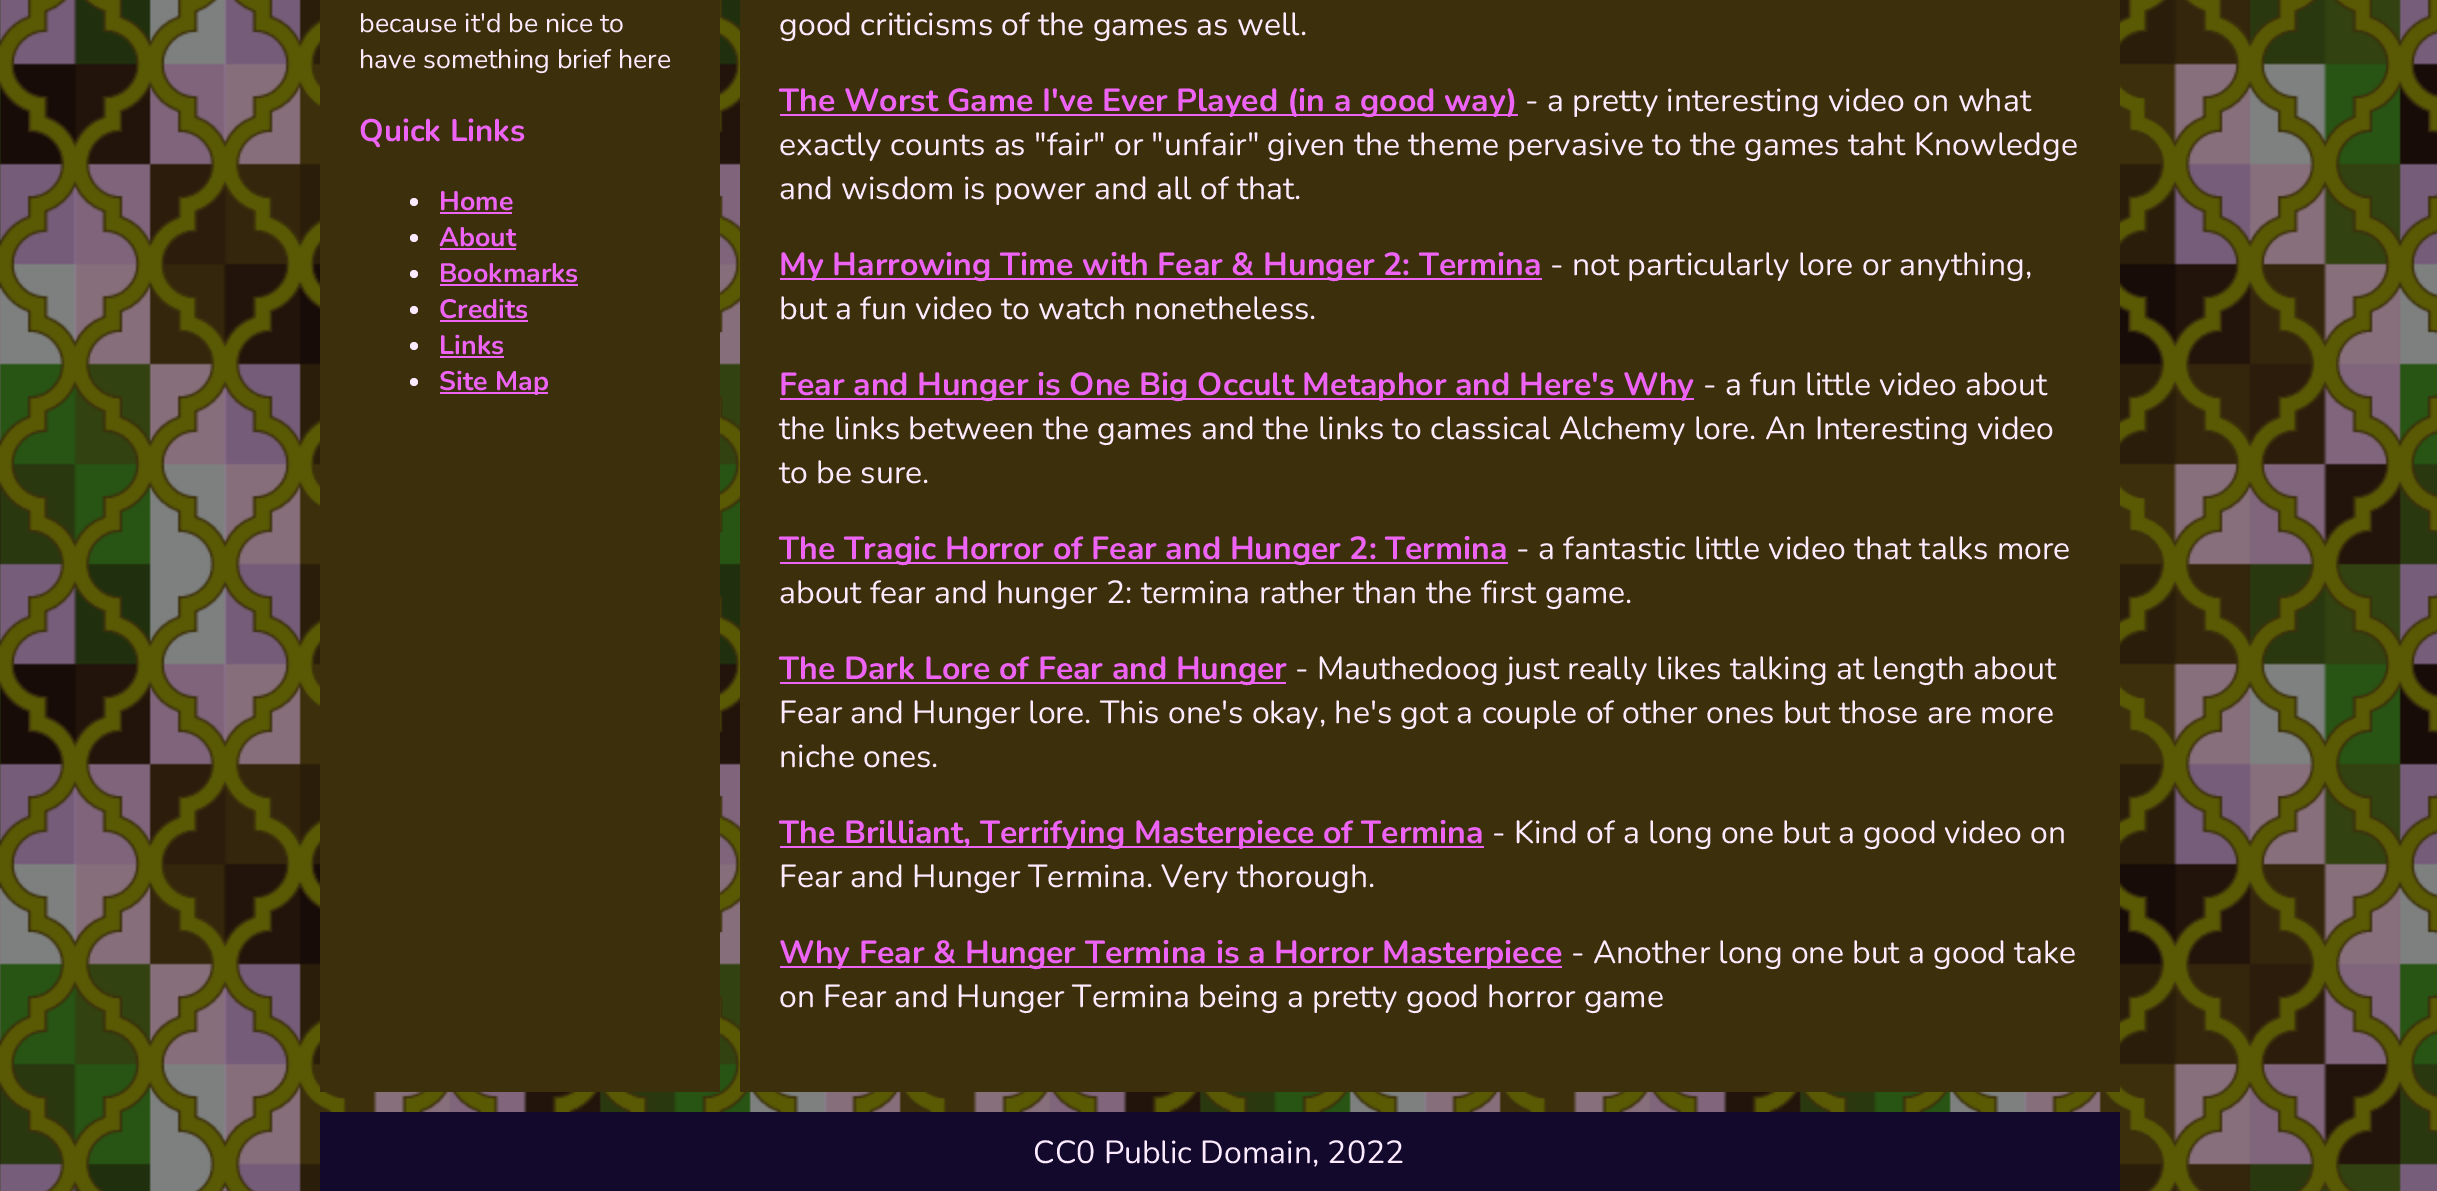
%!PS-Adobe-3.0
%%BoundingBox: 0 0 2437 1191
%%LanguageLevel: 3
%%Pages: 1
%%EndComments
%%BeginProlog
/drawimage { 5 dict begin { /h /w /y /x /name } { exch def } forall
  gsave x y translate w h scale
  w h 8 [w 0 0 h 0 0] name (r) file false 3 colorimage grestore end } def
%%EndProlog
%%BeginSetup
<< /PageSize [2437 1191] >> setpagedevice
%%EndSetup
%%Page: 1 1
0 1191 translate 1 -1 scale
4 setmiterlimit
1 setgray
0 0 2437 1191 rectfill
(images/1.raw) 0 0 2437 1191 drawimage
0.235 0.188 0.047 setrgbcolor
320 0 400 1092 rectfill
0.988 0.918 1 setrgbcolor
newpath 414 202 4 0 360 arc closepath fill
0.929 0.392 0.961 setrgbcolor
440 212 72 2 rectfill
0.988 0.918 1 setrgbcolor
newpath 414 238 4 0 360 arc closepath fill
0.929 0.392 0.961 setrgbcolor
440 248 76 2 rectfill
0.988 0.918 1 setrgbcolor
newpath 414 274 4 0 360 arc closepath fill
0.929 0.392 0.961 setrgbcolor
440 284 138 2 rectfill
0.988 0.918 1 setrgbcolor
newpath 414 310 4 0 360 arc closepath fill
0.929 0.392 0.961 setrgbcolor
440 320 88 2 rectfill
0.988 0.918 1 setrgbcolor
newpath 414 346 4 0 360 arc closepath fill
0.929 0.392 0.961 setrgbcolor
440 356 64 2 rectfill
0.988 0.918 1 setrgbcolor
newpath 414 382 4 0 360 arc closepath fill
0.929 0.392 0.961 setrgbcolor
440 392 108 2 rectfill
0.235 0.188 0.047 setrgbcolor
740 0 1380 1092 rectfill
0.929 0.392 0.961 setrgbcolor
780 114 738 2 rectfill
780 278 762 2 rectfill
780 398 914 2 rectfill
780 562 728 2 rectfill
780 682 506 2 rectfill
780 846 704 2 rectfill
780 966 782 2 rectfill
0.075 0.035 0.176 setrgbcolor
320 1112 1800 79 rectfill
/Nunito-Regular [26.75 0 0 -26.75 0 0] selectfont
0.988 0.918 1 setrgbcolor
359 32 moveto (because it'd be nice to) show
359 68 moveto (have something brief here) show
/Nunito-Bold [31.25 0 0 -31.25 0 0] selectfont
0.929 0.392 0.961 setrgbcolor
359 141 moveto (Quick Links) show
/Nunito-Bold [26.75 0 0 -26.75 0 0] selectfont
439 210 moveto (Home) show
439 246 moveto (About) show
439 282 moveto (Bookmarks) show
439 318 moveto (Credits) show
439 354 moveto (Links) show
439 390 moveto (Site Map) show
/Nunito-Regular [32 0 0 -32 0 0] selectfont
0.988 0.918 1 setrgbcolor
779 35 moveto (good criticisms of the games as well.) show
/Nunito-Bold [32 0 0 -32 0 0] selectfont
0.929 0.392 0.961 setrgbcolor
779 111 moveto (The Worst Game I've Ever Played \(in a good way\)) show
/Nunito-Regular [32 0 0 -32 0 0] selectfont
0.988 0.918 1 setrgbcolor
1525 111 moveto (- a pretty interesting video on what) show
779 155 moveto (exactly counts as "fair" or "unfair" given the theme pervasive to the games taht Knowledge) show
779 199 moveto (and wisdom is power and all of that.) show
/Nunito-Bold [32 0 0 -32 0 0] selectfont
0.929 0.392 0.961 setrgbcolor
779 275 moveto (My Harrowing Time with Fear & Hunger 2: Termina) show
/Nunito-Regular [32 0 0 -32 0 0] selectfont
0.988 0.918 1 setrgbcolor
1550 275 moveto (- not particularly lore or anything,) show
779 319 moveto (but a fun video to watch nonetheless.) show
/Nunito-Bold [32 0 0 -32 0 0] selectfont
0.929 0.392 0.961 setrgbcolor
779 395 moveto (Fear and Hunger is One Big Occult Metaphor and Here's Why) show
/Nunito-Regular [32 0 0 -32 0 0] selectfont
0.988 0.918 1 setrgbcolor
1703 395 moveto (- a fun little video about) show
779 439 moveto (the links between the games and the links to classical Alchemy lore. An Interesting video) show
779 483 moveto (to be sure.) show
/Nunito-Bold [32 0 0 -32 0 0] selectfont
0.929 0.392 0.961 setrgbcolor
779 559 moveto (The Tragic Horror of Fear and Hunger 2: Termina) show
/Nunito-Regular [32 0 0 -32 0 0] selectfont
0.988 0.918 1 setrgbcolor
1516 559 moveto (- a fantastic little video that talks more) show
779 603 moveto (about fear and hunger 2: termina rather than the first game.) show
/Nunito-Bold [32 0 0 -32 0 0] selectfont
0.929 0.392 0.961 setrgbcolor
779 679 moveto (The Dark Lore of Fear and Hunger) show
/Nunito-Regular [32 0 0 -32 0 0] selectfont
0.988 0.918 1 setrgbcolor
1295 679 moveto (- Mauthedoog just really likes talking at length about) show
779 723 moveto (Fear and Hunger lore. This one's okay, he's got a couple of other ones but those are more) show
779 767 moveto (niche ones.) show
/Nunito-Bold [32 0 0 -32 0 0] selectfont
0.929 0.392 0.961 setrgbcolor
779 843 moveto (The Brilliant, Terrifying Masterpiece of Termina) show
/Nunito-Regular [32 0 0 -32 0 0] selectfont
0.988 0.918 1 setrgbcolor
1492 843 moveto (- Kind of a long one but a good video on) show
779 887 moveto (Fear and Hunger Termina. Very thorough.) show
/Nunito-Bold [32 0 0 -32 0 0] selectfont
0.929 0.392 0.961 setrgbcolor
779 963 moveto (Why Fear & Hunger Termina is a Horror Masterpiece) show
/Nunito-Regular [32 0 0 -32 0 0] selectfont
0.988 0.918 1 setrgbcolor
1571 963 moveto (- Another long one but a good take) show
779 1007 moveto (on Fear and Hunger Termina being a pretty good horror game) show
1033 1163 moveto (CC0 Public Domain, 2022) show
showpage
%%EOF
